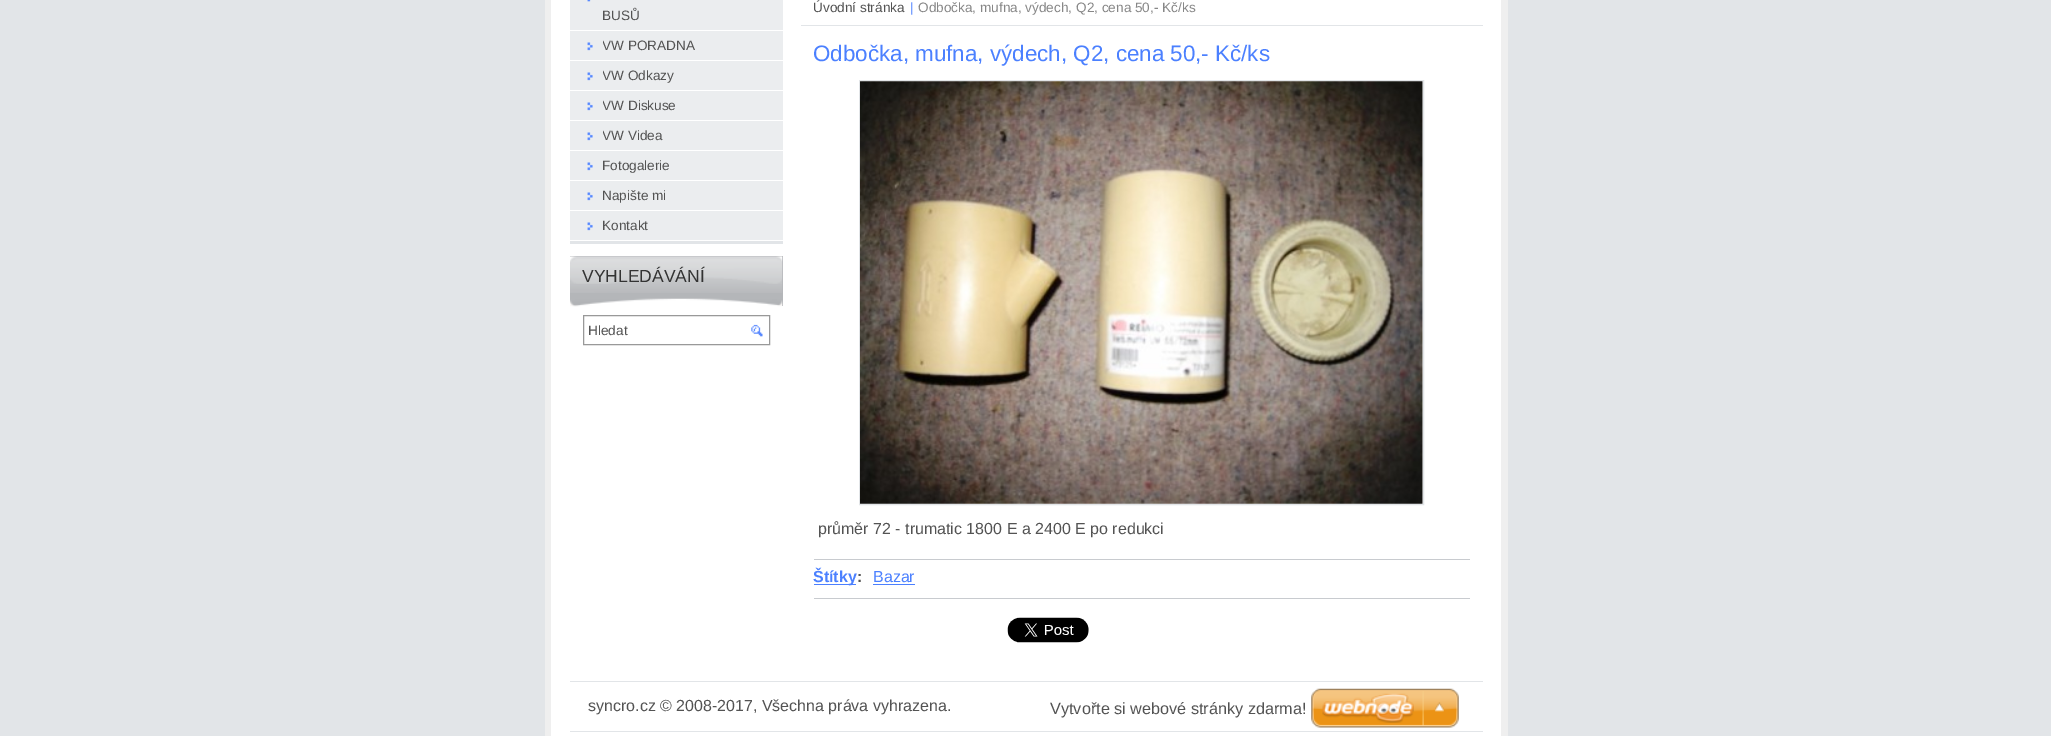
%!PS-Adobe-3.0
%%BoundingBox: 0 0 2051 736
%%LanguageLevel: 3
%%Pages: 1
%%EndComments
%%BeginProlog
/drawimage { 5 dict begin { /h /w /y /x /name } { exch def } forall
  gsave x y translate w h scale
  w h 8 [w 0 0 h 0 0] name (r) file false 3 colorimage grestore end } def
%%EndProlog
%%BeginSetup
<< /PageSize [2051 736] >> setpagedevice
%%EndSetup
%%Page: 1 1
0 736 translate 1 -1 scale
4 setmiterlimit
0.886 0.898 0.91 setrgbcolor
0 0 2051 736 rectfill
1 setgray
551 0 950 736 rectfill
0.937 setgray
1501 0 7 736 rectfill
545 0 6 736 rectfill
0.886 0.898 0.91 setrgbcolor
570 241 213 3 rectfill
0.922 0.929 0.937 setrgbcolor
570 0 213 240 rectfill
(images/1.raw) 587 0 4 2 drawimage
1 setgray
570 30 213 1 rectfill
(images/2.raw) 587 42 6 9 drawimage
570 60 213 1 rectfill
(images/2.raw) 587 72 6 9 drawimage
570 90 213 1 rectfill
(images/2.raw) 587 102 6 9 drawimage
570 120 213 1 rectfill
(images/2.raw) 587 132 6 9 drawimage
570 150 213 1 rectfill
(images/2.raw) 587 162 6 9 drawimage
570 180 213 1 rectfill
(images/2.raw) 587 192 6 9 drawimage
570 210 213 1 rectfill
(images/2.raw) 587 222 6 9 drawimage
0.706 0.714 0.725 setrgbcolor
570 256 213 50 rectfill
(images/3.raw) 570 256 213 37 drawimage
(images/4.raw) 570 298 213 9 drawimage
0.6 setgray
583.5 315.5 186 29 rectstroke
(images/5.raw) 751 324 12 13 drawimage
0.886 0.898 0.91 setrgbcolor
801 25 682 1 rectfill
859.5 80.5 564 424 rectstroke
(images/6.raw) 860 81 563 423 drawimage
0.784 0.796 0.812 setrgbcolor
814 559 656 1 rectfill
814 598 656 1 rectfill
0.294 0.498 1 setrgbcolor
814 584 42 1 rectfill
873 584 42 1 rectfill
(images/7.raw) 1007 617 82 26 drawimage
0.886 0.898 0.91 setrgbcolor
570 681 913 1 rectfill
570 731 913 1 rectfill
(images/8.raw) 1311 688 148 40 drawimage
/LiberationSans-Regular [13.6 0 0 -13.6 0 0] selectfont
0.325 setgray
602 20 moveto (BUSŮ) show
gsave
603 31 167 29 rectclip
602 50 moveto (VW PORADNA) show
grestore
gsave
603 61 167 29 rectclip
602 80 moveto (VW Odkazy) show
grestore
gsave
603 91 167 29 rectclip
602 110 moveto (VW Diskuse) show
grestore
gsave
603 121 167 29 rectclip
602 140 moveto (VW Videa) show
grestore
602 170 moveto (Fotogalerie) show
602 200 moveto (Napište mi) show
602 230 moveto (Kontakt) show
/LiberationSans-Regular [17.5 0 0 -17.5 0 0] selectfont
0.2 setgray
582 282 moveto (VYHLEDÁVÁNÍ) show
/LiberationSans-Regular [13.6 0 0 -13.6 0 0] selectfont
0.325 setgray
588 335 moveto (Hledat) show
813 12 moveto (Úvodní stránka) show
0.294 0.502 1 setrgbcolor
910 12 moveto (|) show
0.529 setgray
918 12 moveto (Odbočka, mufna, výdech, Q2, cena 50,- Kč/ks) show
/LiberationSans-Regular [22.4 0 0 -22.4 0 0] selectfont
0.294 0.502 1 setrgbcolor
813 61 moveto (Odbočka, mufna, výdech, Q2, cena 50,- Kč/ks) show
/LiberationSans-Regular [16 0 0 -16 0 0] selectfont
0.325 setgray
818 534 moveto (průměr 72 - trumatic 1800 E a 2400 E po redukci) show
/LiberationSans-Bold [16 0 0 -16 0 0] selectfont
0.294 0.502 1 setrgbcolor
813 582 moveto (Štítky) show
0.325 setgray
857 582 moveto (:) show
/LiberationSans-Regular [16 0 0 -16 0 0] selectfont
0.294 0.502 1 setrgbcolor
873 582 moveto (Bazar) show
0.325 setgray
588 711 moveto (syncro.cz © 2008-2017, Všechna práva vyhrazena.) show
/LiberationSans-Regular [16.25 0 0 -16.25 0 0] selectfont
1050 714 moveto (Vytvořte si webové stránky zdarma!) show
showpage
%%EOF
